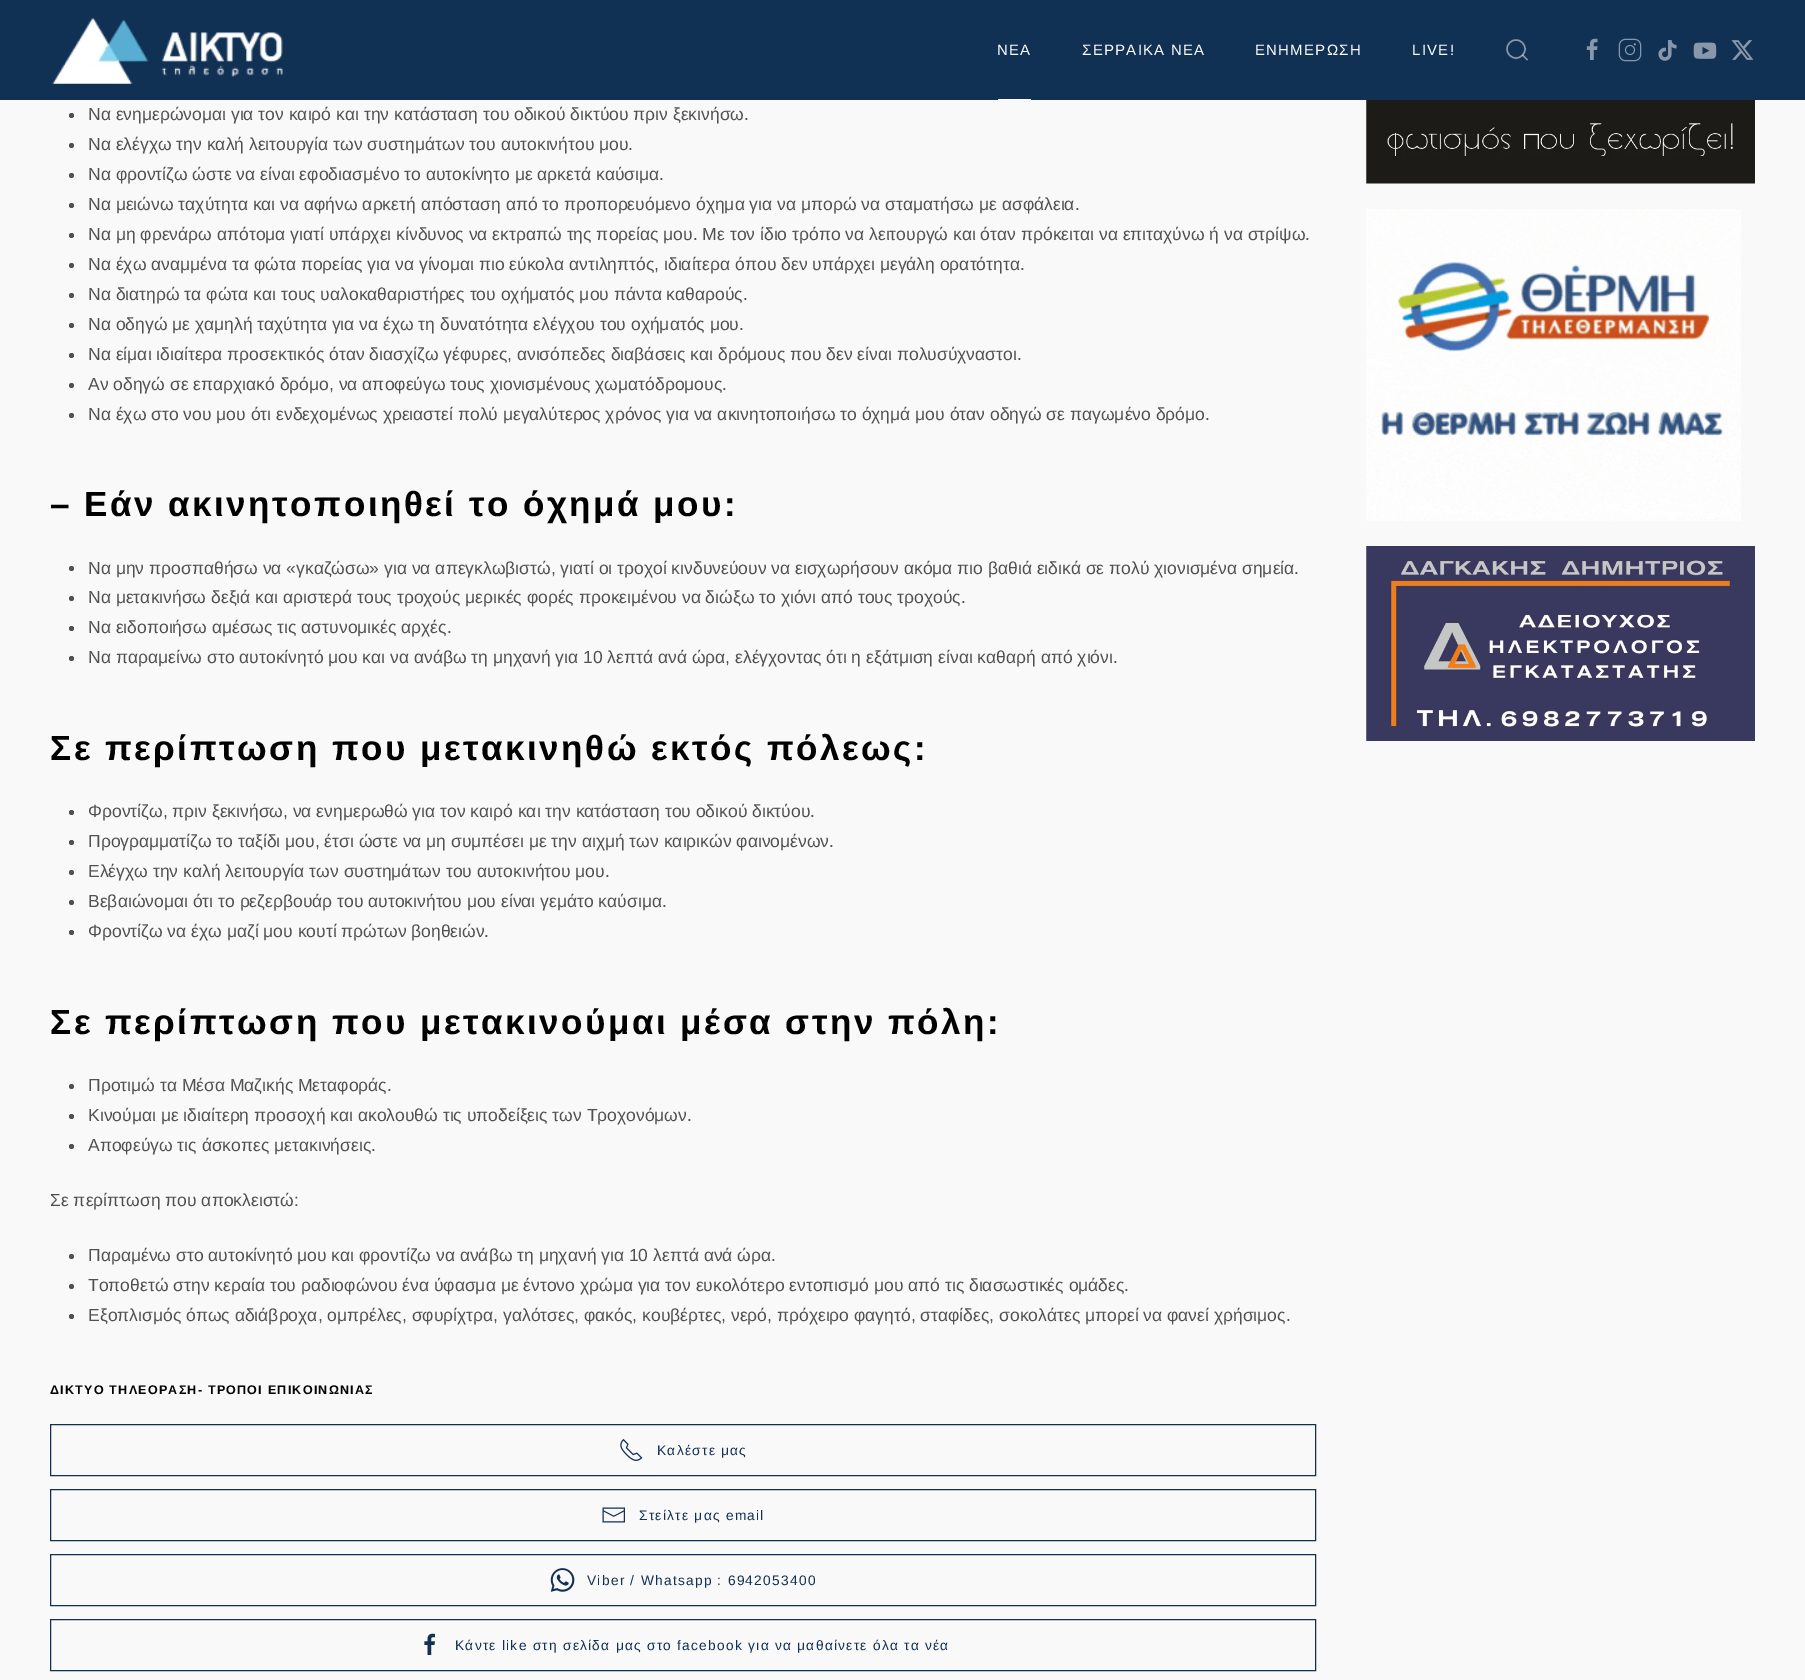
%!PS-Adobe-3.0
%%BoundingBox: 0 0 1805 1680
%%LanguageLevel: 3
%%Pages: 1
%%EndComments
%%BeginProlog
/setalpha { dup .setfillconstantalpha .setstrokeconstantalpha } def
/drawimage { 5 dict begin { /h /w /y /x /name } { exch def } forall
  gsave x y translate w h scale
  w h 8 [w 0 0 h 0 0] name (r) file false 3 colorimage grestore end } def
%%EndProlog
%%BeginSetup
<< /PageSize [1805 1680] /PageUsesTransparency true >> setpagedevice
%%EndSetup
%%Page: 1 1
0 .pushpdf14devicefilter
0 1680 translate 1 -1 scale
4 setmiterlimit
0.976 setgray
0 0 1805 1680 rectfill
0.067 0.192 0.329 setrgbcolor
0 0 1805 100 rectfill
(images/1.raw) 52 17 231 67 drawimage
1 setgray
998 99 33 1 rectfill
0.533 0.596 0.667 setrgbcolor
1.4 setlinewidth
newpath 1516 49 9 0 360 arc closepath stroke
0.5 setalpha
1 setgray
newpath 1522.5 55 moveto 1527.5 60 lineto closepath stroke
1 setalpha
(images/2.raw) 1586 38 12 22 drawimage
(images/3.raw) 1618 38 24 24 drawimage
(images/4.raw) 1658 40 19 21 drawimage
(images/5.raw) 1693 42 24 17 drawimage
(images/6.raw) 1731 40 23 20 drawimage
0.322 0.31 0.31 setrgbcolor
newpath 71.5 115.5 2.5 0 360 arc closepath fill
newpath 71.5 145.5 2.5 0 360 arc closepath fill
newpath 71.5 175.5 2.5 0 360 arc closepath fill
newpath 71.5 205.5 2.5 0 360 arc closepath fill
newpath 71.5 235.5 2.5 0 360 arc closepath fill
newpath 71.5 265.5 2.5 0 360 arc closepath fill
newpath 71.5 295.5 2.5 0 360 arc closepath fill
newpath 71.5 325.5 2.5 0 360 arc closepath fill
newpath 71.5 355.5 2.5 0 360 arc closepath fill
newpath 71.5 385.5 2.5 0 360 arc closepath fill
newpath 71.5 415.5 2.5 0 360 arc closepath fill
newpath 71.5 568.5 2.5 0 360 arc closepath fill
newpath 71.5 598.5 2.5 0 360 arc closepath fill
newpath 71.5 628.5 2.5 0 360 arc closepath fill
newpath 71.5 658.5 2.5 0 360 arc closepath fill
newpath 71.5 812.5 2.5 0 360 arc closepath fill
newpath 71.5 842.5 2.5 0 360 arc closepath fill
newpath 71.5 872.5 2.5 0 360 arc closepath fill
newpath 71.5 902.5 2.5 0 360 arc closepath fill
newpath 71.5 932.5 2.5 0 360 arc closepath fill
newpath 71.5 1086.5 2.5 0 360 arc closepath fill
newpath 71.5 1116.5 2.5 0 360 arc closepath fill
newpath 71.5 1146.5 2.5 0 360 arc closepath fill
newpath 71.5 1256.5 2.5 0 360 arc closepath fill
newpath 71.5 1286.5 2.5 0 360 arc closepath fill
newpath 71.5 1316.5 2.5 0 360 arc closepath fill
0.067 0.188 0.329 setrgbcolor
1 setlinewidth
50.5 1424.5 1265 51 rectstroke
(images/7.raw) 620 1439 23 22 drawimage
50.5 1489.5 1265 51 rectstroke
(images/8.raw) 602 1507 23 16 drawimage
50.5 1554.5 1265 51 rectstroke
(images/9.raw) 550 1568 25 24 drawimage
50.5 1619.5 1265 51 rectstroke
(images/10.raw) 424 1633 11 22 drawimage
(images/11.raw) 1366 100 389 84 drawimage
(images/12.raw) 1366 209 375 312 drawimage
(images/13.raw) 1366 546 389 195 drawimage
/LiberationSans-Regular [15 0 0 -15 0 0] selectfont
1 setgray
997 55 moveto 1.25 0 (NEA) ashow
1082 55 moveto 1.25 0 (ΣΕΡΡΑΙΚΑ ΝΕΑ) ashow
1255 55 moveto 1.25 0 (ΕΝΗΜΕΡΩΣΗ) ashow
1412 55 moveto 1.25 0 (LIVE!) ashow
/LiberationSans-Regular [17.5 0 0 -17.5 0 0] selectfont
0.322 0.31 0.31 setrgbcolor
88 120 moveto (Να ενημερώνομαι για τον καιρό και την κατάσταση του οδικού δικτύου πριν ξεκινήσω.) show
88 150 moveto (Να ελέγχω την καλή λειτουργία των συστημάτων του αυτοκινήτου μου.) show
88 180 moveto (Να φροντίζω ώστε να είναι εφοδιασμένο το αυτοκίνητο με αρκετά καύσιμα.) show
88 210 moveto (Να μειώνω ταχύτητα και να αφήνω αρκετή απόσταση από το προπορευόμενο όχημα για να μπορώ να σταματήσω με ασφάλεια.) show
88 240 moveto (Να μη φρενάρω απότομα γιατί υπάρχει κίνδυνος να εκτραπώ της πορείας μου. Με τον ίδιο τρόπο να λειτουργώ και όταν πρόκειται να επιταχύνω ή να στρίψω.) show
88 270 moveto (Να έχω αναμμένα τα φώτα πορείας για να γίνομαι πιο εύκολα αντιληπτός, ιδιαίτερα όπου δεν υπάρχει μεγάλη ορατότητα.) show
88 300 moveto (Να διατηρώ τα φώτα και τους υαλοκαθαριστήρες του οχήματός μου πάντα καθαρούς.) show
88 330 moveto (Να οδηγώ με χαμηλή ταχύτητα για να έχω τη δυνατότητα ελέγχου του οχήματός μου.) show
88 360 moveto (Να είμαι ιδιαίτερα προσεκτικός όταν διασχίζω γέφυρες, ανισόπεδες διαβάσεις και δρόμους που δεν είναι πολυσύχναστοι.) show
88 390 moveto (Αν οδηγώ σε επαρχιακό δρόμο, να αποφεύγω τους χιονισμένους χωματόδρομους.) show
88 420 moveto (Να έχω στο νου μου ότι ενδεχομένως χρειαστεί πολύ μεγαλύτερος χρόνος για να ακινητοποιήσω το όχημά μου όταν οδηγώ σε παγωμένο δρόμο.) show
/LiberationSans-Bold [35 0 0 -35 0 0] selectfont
0.004 setgray
50 516 moveto 2.5 0 (– Εάν ακινητοποιηθεί το όχημά μου:) ashow
/LiberationSans-Regular [17.5 0 0 -17.5 0 0] selectfont
0.322 0.31 0.31 setrgbcolor
88 574 moveto (Να μην προσπαθήσω να «γκαζώσω» για να απεγκλωβιστώ, γιατί οι τροχοί κινδυνεύουν να εισχωρήσουν ακόμα πιο βαθιά ειδικά σε πολύ χιονισμένα σημεία.) show
88 603 moveto (Να μετακινήσω δεξιά και αριστερά τους τροχούς μερικές φορές προκειμένου να διώξω το χιόνι από τους τροχούς.) show
88 633 moveto (Να ειδοποιήσω αμέσως τις αστυνομικές αρχές.) show
88 663 moveto (Να παραμείνω στο αυτοκίνητό μου και να ανάβω τη μηχανή για 10 λεπτά ανά ώρα, ελέγχοντας ότι η εξάτμιση είναι καθαρή από χιόνι.) show
/LiberationSans-Bold [35 0 0 -35 0 0] selectfont
0.004 setgray
50 760 moveto 2.5 0 (Σε περίπτωση που μετακινηθώ εκτός πόλεως:) ashow
/LiberationSans-Regular [17.5 0 0 -17.5 0 0] selectfont
0.322 0.31 0.31 setrgbcolor
88 817 moveto (Φροντίζω, πριν ξεκινήσω, να ενημερωθώ για τον καιρό και την κατάσταση του οδικού δικτύου.) show
88 847 moveto (Προγραμματίζω το ταξίδι μου, έτσι ώστε να μη συμπέσει με την αιχμή των καιρικών φαινομένων.) show
88 877 moveto (Ελέγχω την καλή λειτουργία των συστημάτων του αυτοκινήτου μου.) show
88 907 moveto (Βεβαιώνομαι ότι το ρεζερβουάρ του αυτοκινήτου μου είναι γεμάτο καύσιμα.) show
88 937 moveto (Φροντίζω να έχω μαζί μου κουτί πρώτων βοηθειών.) show
/LiberationSans-Bold [35 0 0 -35 0 0] selectfont
0.004 setgray
50 1034 moveto 2.5 0 (Σε περίπτωση που μετακινούμαι μέσα στην πόλη:) ashow
/LiberationSans-Regular [17.5 0 0 -17.5 0 0] selectfont
0.322 0.31 0.31 setrgbcolor
88 1091 moveto (Προτιμώ τα Μέσα Μαζικής Μεταφοράς.) show
88 1121 moveto (Κινούμαι με ιδιαίτερη προσοχή και ακολουθώ τις υποδείξεις των Τροχονόμων.) show
88 1151 moveto (Αποφεύγω τις άσκοπες μετακινήσεις.) show
50 1206 moveto (Σε περίπτωση που αποκλειστώ:) show
88 1261 moveto (Παραμένω στο αυτοκίνητό μου και φροντίζω να ανάβω τη μηχανή για 10 λεπτά ανά ώρα.) show
88 1291 moveto (Τοποθετώ στην κεραία του ραδιοφώνου ένα ύφασμα με έντονο χρώμα για τον ευκολότερο εντοπισμό μου από τις διασωστικές ομάδες.) show
88 1321 moveto (Εξοπλισμός όπως αδιάβροχα, ομπρέλες, σφυρίχτρα, γαλότσες, φακός, κουβέρτες, νερό, πρόχειρο φαγητό, σταφίδες, σοκολάτες μπορεί να φανεί χρήσιμος.) show
/LiberationSans-Bold [12.5 0 0 -12.5 0 0] selectfont
0.004 setgray
50 1394 moveto 1.25 0 (ΔΙΚΤΥΟ ΤΗΛΕΟΡΑΣΗ- ΤΡΟΠΟΙ ΕΠΙΚΟΙΝΩΝΙΑΣ) ashow
/LiberationSans-Regular [13.75 0 0 -13.75 0 0] selectfont
0.067 0.188 0.329 setrgbcolor
657 1455 moveto 1.25 0 (Καλέστε μας) ashow
639 1520 moveto 1.25 0 (Στείλτε μας email) ashow
587 1585 moveto 1.25 0 (Viber / Whatsapp : 6942053400) ashow
455 1650 moveto 1.25 0 (Κάντε like στη σελίδα μας στο facebook για να μαθαίνετε όλα τα νέα) ashow
.poppdf14devicefilter showpage
%%EOF
